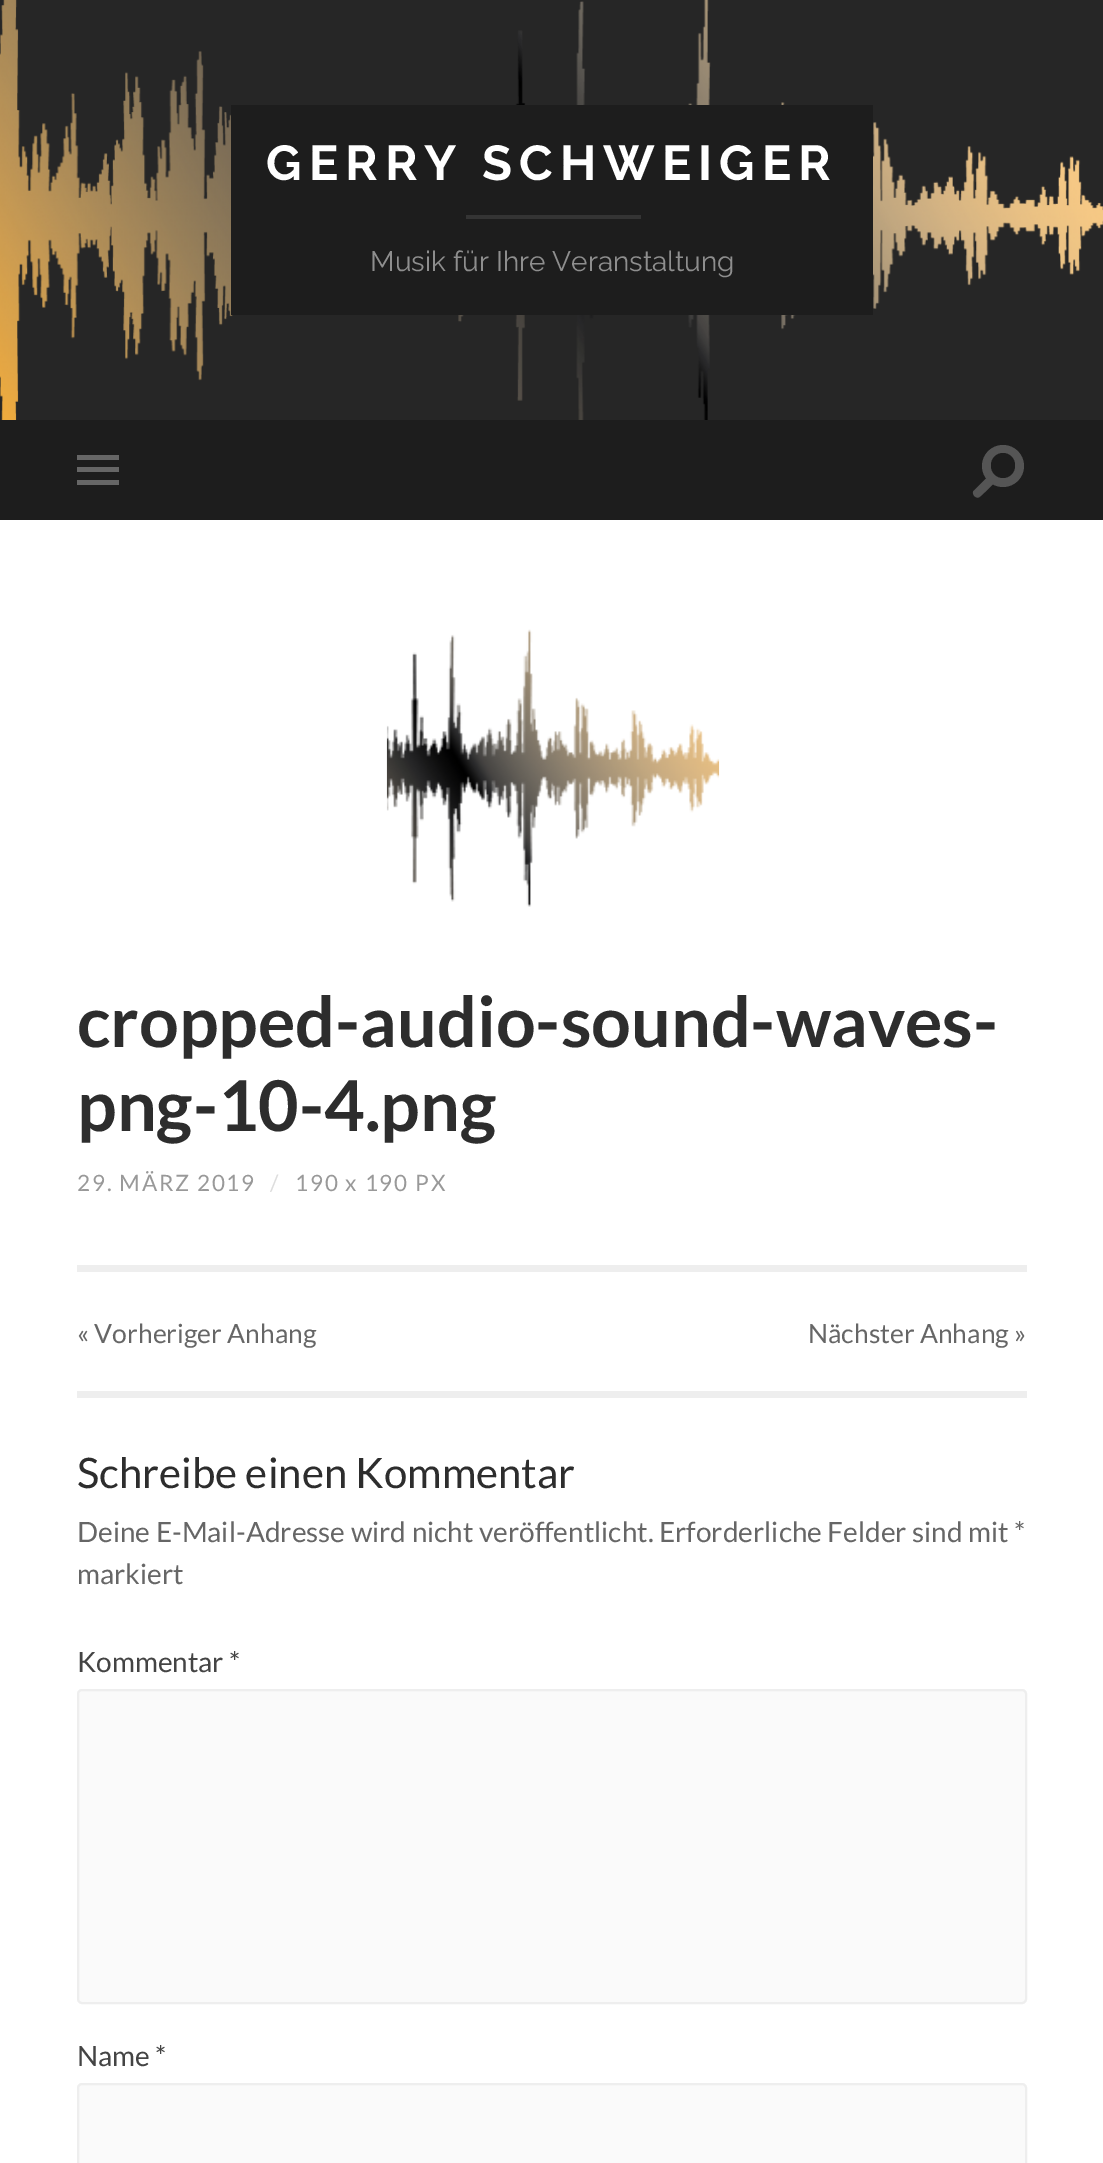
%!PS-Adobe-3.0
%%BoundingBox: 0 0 1103 2163
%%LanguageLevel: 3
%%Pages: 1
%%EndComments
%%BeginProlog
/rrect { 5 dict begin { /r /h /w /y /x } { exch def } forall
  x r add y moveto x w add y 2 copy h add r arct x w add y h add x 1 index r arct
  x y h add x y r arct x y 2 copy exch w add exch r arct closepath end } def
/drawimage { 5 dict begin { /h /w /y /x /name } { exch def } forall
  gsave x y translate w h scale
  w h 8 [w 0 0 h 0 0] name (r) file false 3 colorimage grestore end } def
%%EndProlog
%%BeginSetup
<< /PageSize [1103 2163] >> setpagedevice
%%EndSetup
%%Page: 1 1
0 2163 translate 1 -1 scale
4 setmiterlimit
1 setgray
0 0 1103 2163 rectfill
0.149 setgray
0 0 1103 420 rectfill
(images/1.raw) 0 0 1103 420 drawimage
0.114 setgray
231 105 642 210 rectfill
0.204 setgray
466 215 175 4 rectfill
0.114 setgray
0 420 1103 100 rectfill
0.4 setgray
77 455 42 5 rectfill
77 467 42 5 rectfill
77 480 42 5 rectfill
0.333 setgray
newpath 1003 466 21 0 360 arc closepath fill
0.114 setgray
991 453 24 25 12 rrect fill
0.333 setgray
newpath 974 490.5 moveto 989 475.5 lineto 995 482 lineto 992.5 484.5 980.5 497 978.5 497.5 curveto 975 498.5 971 493 974 490.5 curveto closepath fill
(images/2.raw) 386 629 334 278 drawimage
0.933 setgray
77 1265 950 7 rectfill
77 1391 950 7 rectfill
0.98 setgray
78 1690 948 313 4 rrect gsave fill grestore
0.933 setgray
2 setlinewidth
stroke
0.98 setgray
78 2084 948 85 4 rrect gsave fill grestore
0.933 setgray
stroke
/Raleway-Bold [49 0 0 -49 0 0] selectfont
1 setgray
266 180 moveto 7 0 (GERRY SCHWEIGER) ashow
/Raleway-Regular [28 0 0 -28 0 0] selectfont
0.557 setgray
370 271 moveto (Musik für Ihre Veranstaltung) show
/Lato-Bold [70 0 0 -70 0 0] selectfont
0.176 setgray
77 1047 moveto (cropped-audio-sound-waves-) show
77 1131 moveto (png-10-4.png) show
/Lato-Regular [22.5 0 0 -22.5 0 0] selectfont
0.6 setgray
77 1191 moveto 1.75 0 (29. MÄRZ 2019) ashow
0.867 setgray
270 1191 moveto 1.75 0 (/) ashow
0.6 setgray
295 1191 moveto 1.75 0 (190 x 190 PX) ashow
/Lato-Regular [26.5 0 0 -26.5 0 0] selectfont
0.4 setgray
77 1343 moveto (« Vorheriger Anhang) show
808 1343 moveto (Nächster Anhang ») show
/Lato-Regular [42 0 0 -42 0 0] selectfont
0.176 setgray
77 1488 moveto (Schreibe einen Kommentar) show
/Lato-Regular [28 0 0 -28 0 0] selectfont
0.4 setgray
77 1542 moveto (Deine E-Mail-Adresse wird nicht veröffentlicht. Erforderliche Felder sind mit *) show
77 1584 moveto (markiert) show
0.267 setgray
77 1672 moveto (Kommentar *) show
77 2066 moveto (Name *) show
showpage
%%EOF
